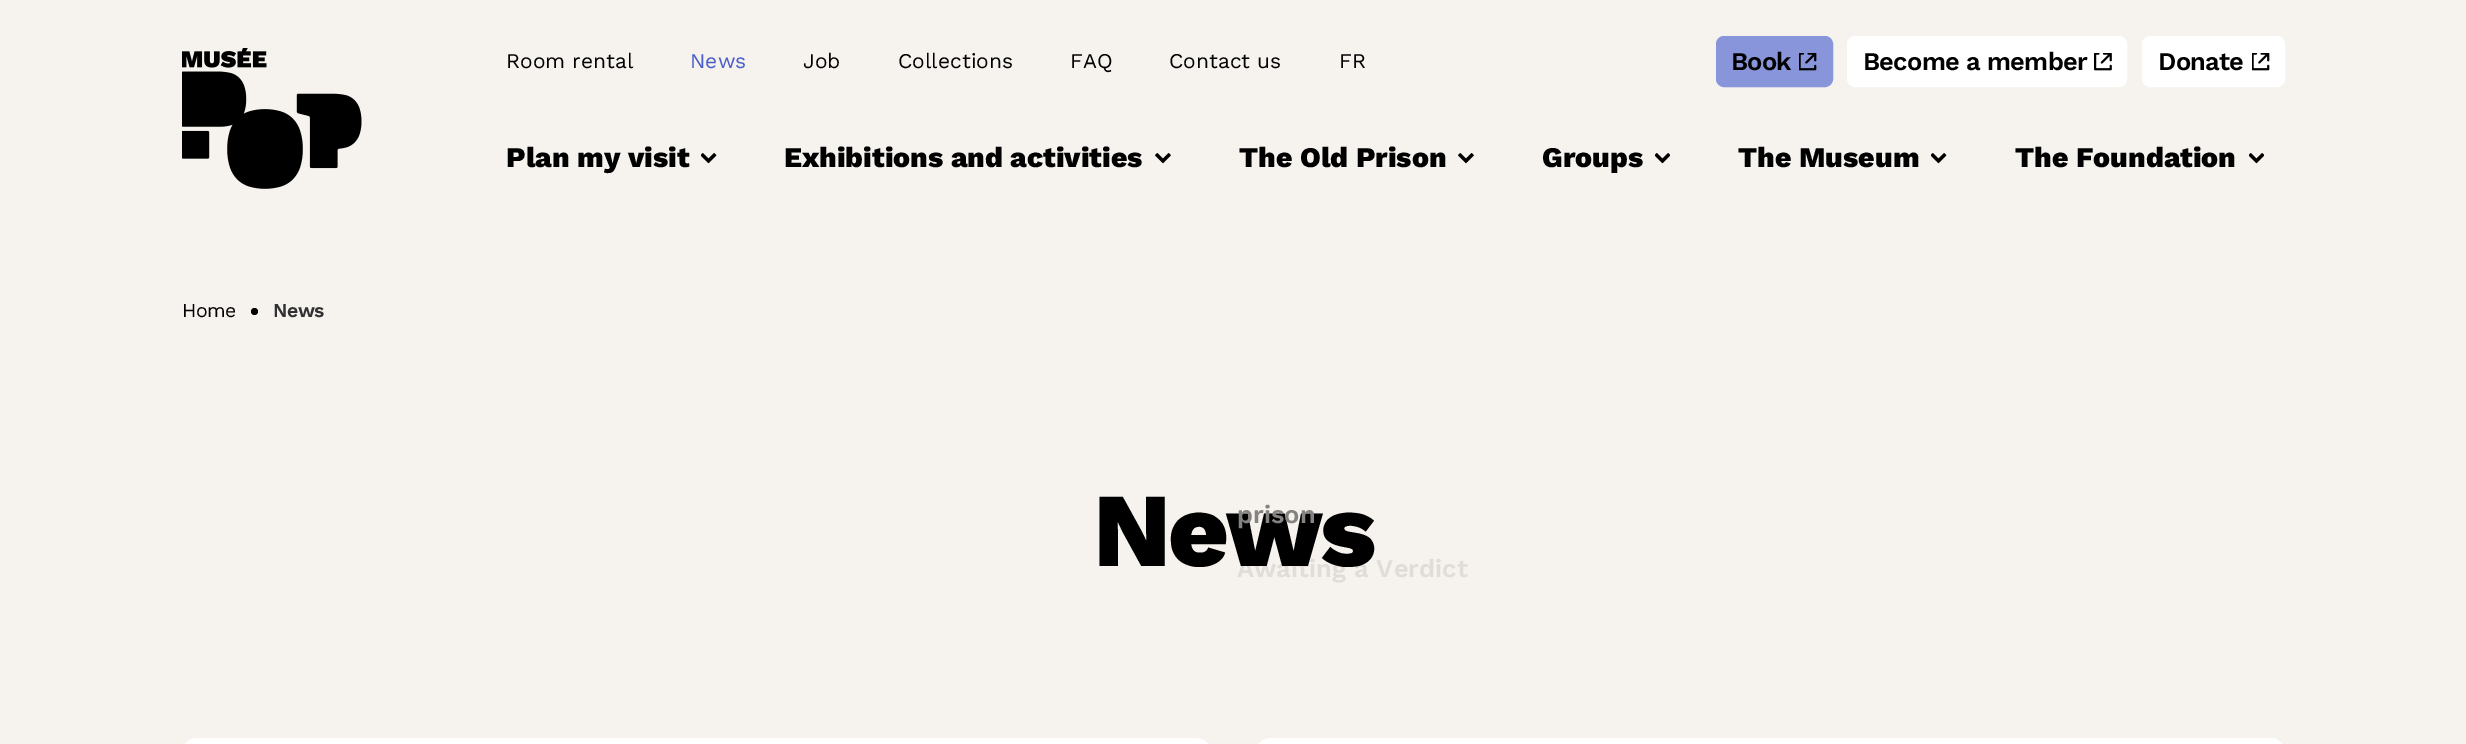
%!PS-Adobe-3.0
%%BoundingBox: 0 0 2466 744
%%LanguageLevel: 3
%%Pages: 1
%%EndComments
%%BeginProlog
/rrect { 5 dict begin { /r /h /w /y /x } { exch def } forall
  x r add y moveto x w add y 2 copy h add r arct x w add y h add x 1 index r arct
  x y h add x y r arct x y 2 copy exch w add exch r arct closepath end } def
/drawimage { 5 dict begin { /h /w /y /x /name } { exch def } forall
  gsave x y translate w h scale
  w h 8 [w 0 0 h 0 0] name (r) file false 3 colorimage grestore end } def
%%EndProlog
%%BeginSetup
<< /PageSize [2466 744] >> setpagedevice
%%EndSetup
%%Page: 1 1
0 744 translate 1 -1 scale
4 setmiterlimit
0.965 0.949 0.933 setrgbcolor
0 0 2466 744 rectfill
(images/1.raw) 182 48 180 141 drawimage
0.533 0.584 0.855 setrgbcolor
1717.5 37.5 114 48 6.5 rrect gsave fill grestore
3 setlinewidth
stroke
(images/2.raw) 1799 53 18 18 drawimage
1 setgray
1848.5 37.5 277 48 6.5 rrect gsave fill grestore
stroke
(images/3.raw) 2094 53 18 18 drawimage
2143.5 37.5 140 48 6.5 rrect gsave fill grestore
stroke
(images/4.raw) 2252 53 18 18 drawimage
(images/5.raw) 701 153 16 11 drawimage
(images/6.raw) 1155 153 16 11 drawimage
(images/6.raw) 1458 153 16 11 drawimage
(images/7.raw) 1655 153 15 11 drawimage
(images/5.raw) 1931 153 16 11 drawimage
(images/7.raw) 2249 153 15 11 drawimage
0 setgray
newpath 254.5 311.5 3.5 0 360 arc closepath fill
1 setgray
newpath 197 738 moveto 1196 738 lineto 1204.5 738 1211 744.5 1211 753 curveto 1211 744 lineto 182 744 lineto 182 753 lineto 182 744.5 188.5 738 197 738 curveto closepath fill
newpath 1271 738 moveto 2270 738 lineto 2278.5 738 2285 744.5 2285 753 curveto 2285 744 lineto 1256 744 lineto 1256 753 lineto 1256 744.5 1262.5 738 1271 738 curveto closepath fill
/WorkSans-Regular [21 0 0 -21 0 0] selectfont
0 setgray
506 68 moveto (Room rental) show
0.29 0.369 0.78 setrgbcolor
690 68 moveto (News) show
0 setgray
803 68 moveto (Job) show
898 68 moveto (Collections) show
1070 68 moveto (FAQ) show
1169 68 moveto (Contact us) show
1339 68 moveto (FR) show
/WorkSans-SemiBold [25.5 0 0 -25.5 0 0] selectfont
1731 70 moveto -0.75 0 (Book) ashow
1863 70 moveto -0.75 0 (Become a member) ashow
2158 70 moveto -0.75 0 (Donate) ashow
/WorkSans-ExtraBold [28.5 0 0 -28.5 0 0] selectfont
506 167 moveto (Plan my visit) show
784 167 moveto (Exhibitions and activities) show
1239 167 moveto (The Old Prison) show
/WorkSans-SemiBold [25.5 0 0 -25.5 0 0] selectfont
0.878 0.863 0.847 setrgbcolor
1237 577 moveto (Awaiting a Verdict) show
/WorkSans-ExtraBold [28.5 0 0 -28.5 0 0] selectfont
0 setgray
1542 167 moveto (Groups) show
1738 167 moveto (The Museum) show
2015 167 moveto (The Foundation) show
/WorkSans-Regular [19.5 0 0 -19.5 0 0] selectfont
182 317 moveto -0.5 0 (Home) ashow
/WorkSans-SemiBold [19.5 0 0 -19.5 0 0] selectfont
0.192 0.192 0.2 setrgbcolor
273 317 moveto -0.5 0 (News) ashow
/WorkSans-ExtraBold [105 0 0 -105 0 0] selectfont
0 setgray
1093 566 moveto -3 0 (News) ashow
/WorkSans-SemiBold [25.5 0 0 -25.5 0 0] selectfont
0.522 0.514 0.506 setrgbcolor
1237 523 moveto (prison) show
showpage
%%EOF
